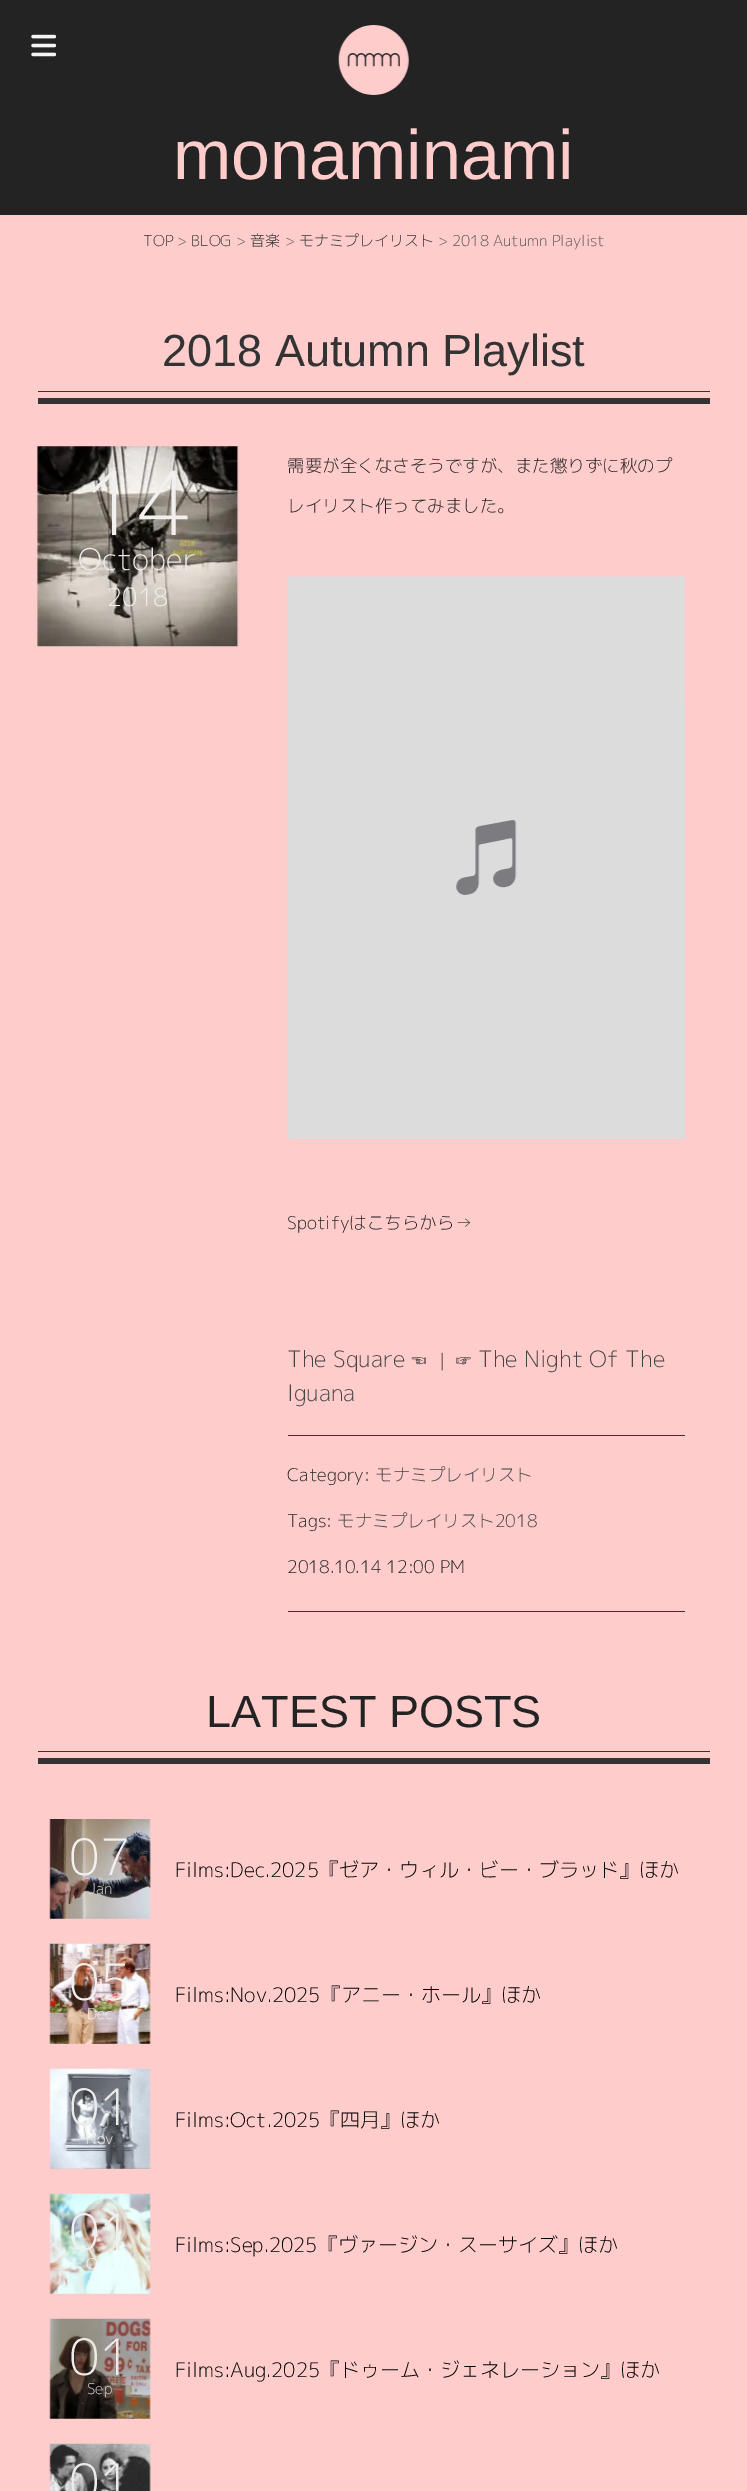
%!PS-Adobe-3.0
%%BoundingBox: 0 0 747 2491
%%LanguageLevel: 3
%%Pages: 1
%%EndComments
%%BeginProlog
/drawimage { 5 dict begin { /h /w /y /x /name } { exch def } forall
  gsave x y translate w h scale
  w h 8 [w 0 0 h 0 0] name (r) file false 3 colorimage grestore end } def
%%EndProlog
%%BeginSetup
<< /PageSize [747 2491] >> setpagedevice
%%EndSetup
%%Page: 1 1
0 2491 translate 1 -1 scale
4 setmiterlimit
1 0.8 0.8 setrgbcolor
0 0 747 2491 rectfill
0.137 setgray
0 0 747 215 rectfill
(images/1.raw) 31 34 25 23 drawimage
(images/2.raw) 338 25 71 70 drawimage
0.2 setgray
38 391 672 1 rectfill
38 398 672 6 rectfill
(images/3.raw) 37 446 202 201 drawimage
(images/4.raw) 287 576 398 563 drawimage
288 1435 397 1 rectfill
288 1611 397 1 rectfill
38 1751 672 1 rectfill
38 1758 672 6 rectfill
(images/5.raw) 49 1819 102 100 drawimage
(images/6.raw) 49 1943 102 101 drawimage
(images/7.raw) 49 2068 102 101 drawimage
(images/8.raw) 49 2193 102 101 drawimage
(images/9.raw) 49 2318 102 101 drawimage
(images/10.raw) 49 2443 102 48 drawimage
/LiberationSans-Regular [70 0 0 -70 0 0] selectfont
1 0.8 0.8 setrgbcolor
173 179 moveto (monaminami) show
/MPLUS1p-Light [15 0 0 -15 0 0] selectfont
0.2 setgray
143 246 moveto (TOP) show
0.333 setgray
177 246 moveto (>) show
0.2 setgray
191 246 moveto (BLOG) show
0.333 setgray
236 246 moveto (>) show
0.2 setgray
250 246 moveto (音楽) show
0.333 setgray
285 246 moveto (>) show
0.2 setgray
299 246 moveto (モナミプレイリスト) show
0.333 setgray
438 246 moveto (> 2018 Autumn Playlist) show
/LiberationSans-Regular [45 0 0 -45 0 0] selectfont
0.2 setgray
162 366 moveto (2018 Autumn Playlist) show
/MPLUS1p-Light [88 0 0 -88 0 0] selectfont
0.945 0.941 0.937 setrgbcolor
84 535 moveto (14) show
/MPLUS1p-Light [30 0 0 -30 0 0] selectfont
0.925 0.922 0.914 setrgbcolor
78 570 moveto (October) show
/MPLUS1p-Light [25 0 0 -25 0 0] selectfont
0.945 0.941 0.937 setrgbcolor
107 606 moveto (2018) show
/MPLUS1p-Light [17.5 0 0 -17.5 0 0] selectfont
0.137 setgray
287 472 moveto (需要が全くなさそうですが、また懲りずに秋のプ) show
287 512 moveto (レイリスト作ってみました。) show
287 1229 moveto (Spotifyはこちらから) show
0.267 setgray
455 1229 moveto (→) show
/MPLUS1p-Light [22.5 0 0 -22.5 0 0] selectfont
287 1367 moveto (The Square) show
/WenQuanYiZenHei-Medium [17.5 0 0 -17.5 0 0] selectfont
0.137 setgray
410 1367 moveto (☜ ║) show
455 1367 moveto (☞) show
/MPLUS1p-Light [22.5 0 0 -22.5 0 0] selectfont
0.267 setgray
478 1367 moveto (The Night Of The) show
287 1401 moveto (Iguana) show
/MPLUS1p-Light [17.5 0 0 -17.5 0 0] selectfont
0.137 setgray
287 1481 moveto (Category:) show
0.267 setgray
375 1481 moveto (モナミプレイリスト) show
0.137 setgray
287 1527 moveto (Tags:) show
0.267 setgray
337 1527 moveto (モナミプレイリスト2018) show
0.137 setgray
287 1573 moveto (2018.10.14 12:00 PM) show
/LiberationSans-Regular [45 0 0 -45 0 0] selectfont
206 1727 moveto (LATEST POSTS) show
/MPLUS1p-Light [50 0 0 -50 0 0] selectfont
0.945 0.941 0.937 setrgbcolor
69 1875 moveto (07) show
/MPLUS1p-Light [15 0 0 -15 0 0] selectfont
0.878 0.878 0.882 setrgbcolor
88 1894 moveto (Jan) show
/MPLUS1p-Light [20 0 0 -20 0 0] selectfont
0 setgray
175 1877 moveto (Films:Dec.2025『ゼア・ウィル・ビー・ブラッド』ほか) show
/MPLUS1p-Light [50 0 0 -50 0 0] selectfont
0.945 0.941 0.937 setrgbcolor
69 2000 moveto (05) show
/MPLUS1p-Light [15 0 0 -15 0 0] selectfont
87 2019 moveto (Dec) show
/MPLUS1p-Light [20 0 0 -20 0 0] selectfont
0 setgray
175 2002 moveto (Films:Nov.2025『アニー・ホール』ほか) show
/MPLUS1p-Light [50 0 0 -50 0 0] selectfont
0.925 0.922 0.914 setrgbcolor
69 2125 moveto (01) show
/MPLUS1p-Light [15 0 0 -15 0 0] selectfont
0.945 0.941 0.937 setrgbcolor
86 2144 moveto (Nov) show
/MPLUS1p-Light [20 0 0 -20 0 0] selectfont
0 setgray
175 2127 moveto (Films:Oct.2025『四月』ほか) show
/MPLUS1p-Light [50 0 0 -50 0 0] selectfont
0.945 0.941 0.937 setrgbcolor
69 2250 moveto (01) show
/MPLUS1p-Light [15 0 0 -15 0 0] selectfont
0.98 0.988 0.984 setrgbcolor
86 2269 moveto (O) show
/MPLUS1p-Light [20 0 0 -20 0 0] selectfont
0 setgray
175 2252 moveto (Films:Sep.2025『ヴァージン・スーサイズ』ほか) show
/MPLUS1p-Light [50 0 0 -50 0 0] selectfont
0.925 0.922 0.914 setrgbcolor
69 2375 moveto (01) show
/MPLUS1p-Light [15 0 0 -15 0 0] selectfont
0.878 0.878 0.882 setrgbcolor
87 2394 moveto (Sep) show
/MPLUS1p-Light [20 0 0 -20 0 0] selectfont
0 setgray
175 2377 moveto (Films:Aug.2025『ドゥーム・ジェネレーション』ほか) show
/MPLUS1p-Light [50 0 0 -50 0 0] selectfont
0.925 0.922 0.914 setrgbcolor
69 2500 moveto (01) show
showpage
%%EOF
